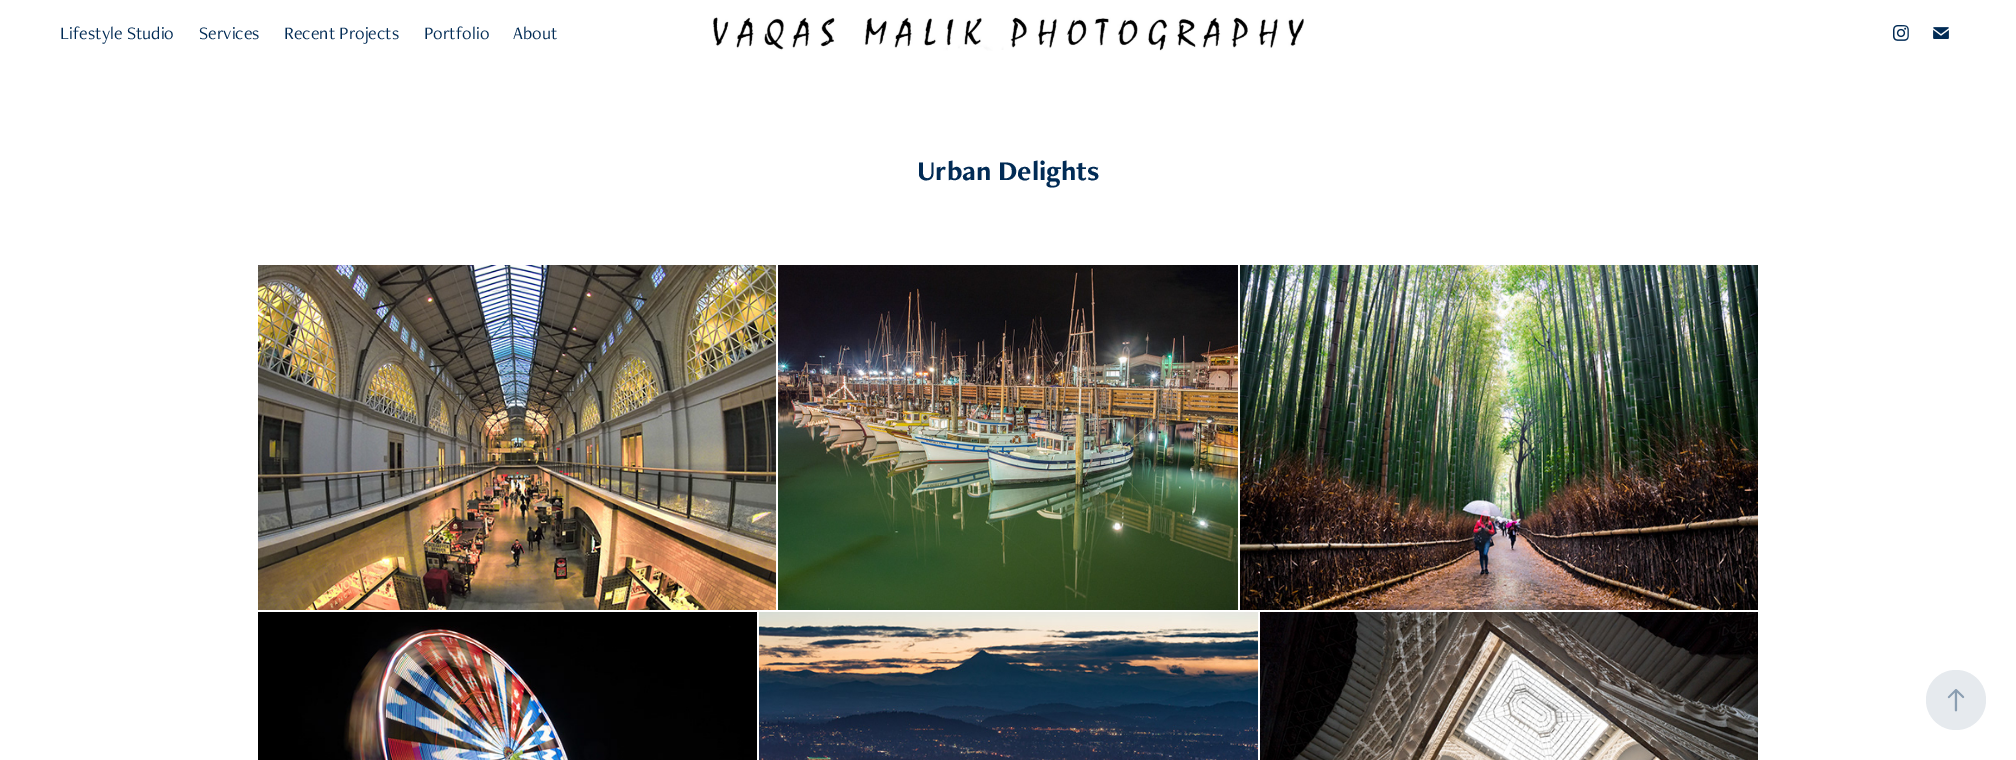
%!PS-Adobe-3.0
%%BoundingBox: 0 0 2016 760
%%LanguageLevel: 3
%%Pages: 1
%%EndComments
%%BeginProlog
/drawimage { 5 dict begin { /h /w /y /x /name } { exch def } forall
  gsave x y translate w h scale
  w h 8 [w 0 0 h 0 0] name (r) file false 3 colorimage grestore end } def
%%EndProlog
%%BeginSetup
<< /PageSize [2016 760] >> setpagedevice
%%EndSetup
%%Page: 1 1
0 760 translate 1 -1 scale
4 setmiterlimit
1 setgray
0 0 2016 760 rectfill
(images/1.raw) 713 17 591 34 drawimage
(images/2.raw) 1893 25 16 16 drawimage
(images/3.raw) 1933 27 16 12 drawimage
(images/4.raw) 258 265 518 345 drawimage
(images/5.raw) 778 265 460 345 drawimage
(images/6.raw) 1240 265 518 345 drawimage
(images/7.raw) 258 612 499 148 drawimage
(images/8.raw) 759 612 499 148 drawimage
(images/9.raw) 1260 612 498 148 drawimage
0.902 0.918 0.933 setrgbcolor
newpath 1956 700 30 0 360 arc closepath fill
(images/10.raw) 1947 689 18 23 drawimage
/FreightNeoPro-Regular [18 0 0 -18 0 0] selectfont
0.004 0.169 0.333 setrgbcolor
60 39 moveto (Lifestyle Studio) show
199 39 moveto (Services) show
284 39 moveto (Recent Projects) show
424 39 moveto (Portfolio) show
513 39 moveto (About) show
/FreightNeoPro-Bold [28 0 0 -28 0 0] selectfont
917 180 moveto (Urban Delights) show
showpage
%%EOF
